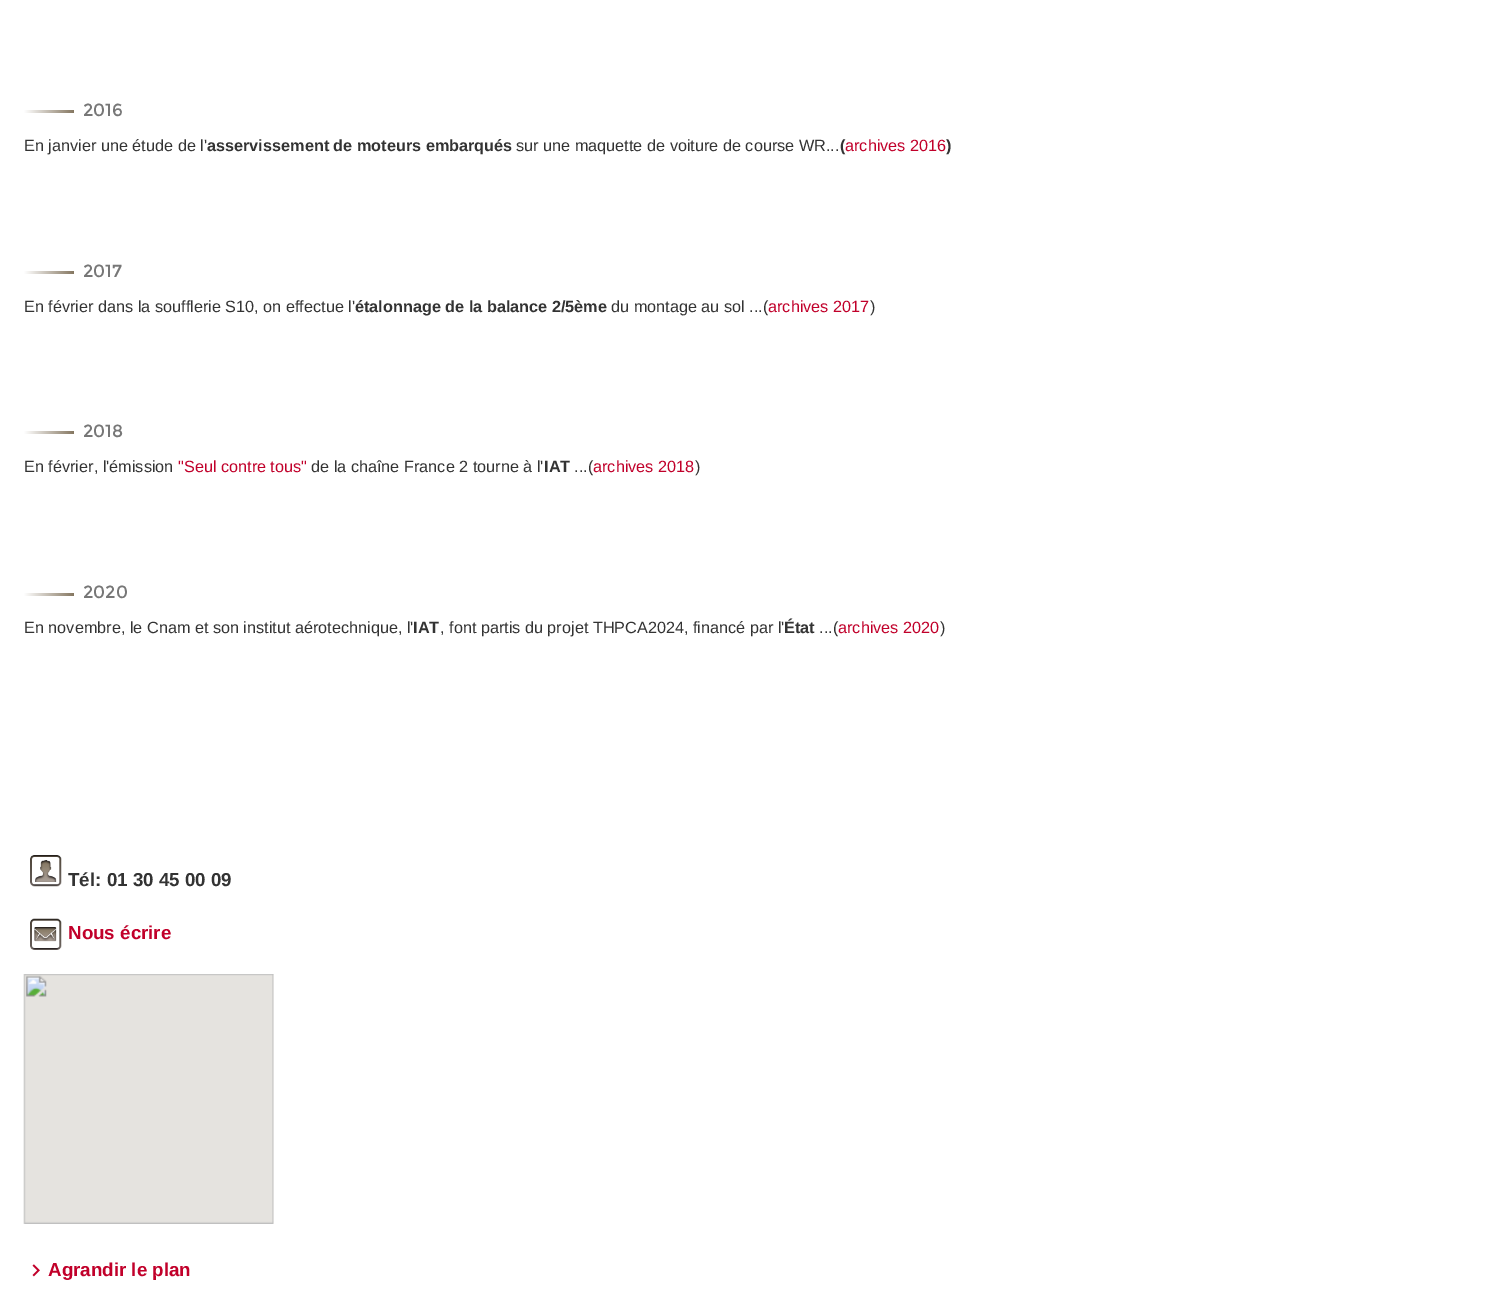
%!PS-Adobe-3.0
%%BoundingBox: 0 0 1495 1308
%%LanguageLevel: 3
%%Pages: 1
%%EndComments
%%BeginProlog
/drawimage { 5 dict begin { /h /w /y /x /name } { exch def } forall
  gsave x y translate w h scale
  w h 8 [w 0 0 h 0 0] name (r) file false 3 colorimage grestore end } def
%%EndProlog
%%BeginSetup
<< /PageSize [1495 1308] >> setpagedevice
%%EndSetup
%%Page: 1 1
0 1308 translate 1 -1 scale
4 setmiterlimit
1 setgray
0 0 1495 1308 rectfill
gsave newpath 24 110 moveto 74 110 lineto 74 113 lineto 24 113 lineto closepath clip newpath
<< /ShadingType 2 /ColorSpace /DeviceRGB /Coords [24 111 74 111] /Extend [true true] /Function << /FunctionType 2 /Domain [0 1] /C0 [1 1 1] /C1 [0.522 0.467 0.38] /N 1 >> >> shfill grestore
gsave newpath 24 271 moveto 74 271 lineto 74 274 lineto 24 274 lineto closepath clip newpath
<< /ShadingType 2 /ColorSpace /DeviceRGB /Coords [24 273 74 273] /Extend [true true] /Function << /FunctionType 2 /Domain [0 1] /C0 [1 1 1] /C1 [0.522 0.467 0.38] /N 1 >> >> shfill grestore
gsave newpath 24 431 moveto 74 431 lineto 74 434 lineto 24 434 lineto closepath clip newpath
<< /ShadingType 2 /ColorSpace /DeviceRGB /Coords [24 433 74 433] /Extend [true true] /Function << /FunctionType 2 /Domain [0 1] /C0 [1 1 1] /C1 [0.522 0.467 0.38] /N 1 >> >> shfill grestore
gsave newpath 24 593 moveto 74 593 lineto 74 596 lineto 24 596 lineto closepath clip newpath
<< /ShadingType 2 /ColorSpace /DeviceRGB /Coords [24 594 74 594] /Extend [true true] /Function << /FunctionType 2 /Domain [0 1] /C0 [1 1 1] /C1 [0.522 0.467 0.38] /N 1 >> >> shfill grestore
(images/1.raw) 30 855 32 32 drawimage
(images/2.raw) 30 918 32 32 drawimage
(images/3.raw) 23 974 251 250 drawimage
(images/4.raw) 32 1264 8 13 drawimage
/Montserrat-Regular [17.5 0 0 -17.5 0 0] selectfont
0.467 setgray
83 116 moveto (2016) show
/LiberationSans-Regular [16.25 0 0 -16.25 0 0] selectfont
0.2 setgray
24 151 moveto (En janvier une étude de l') show
/LiberationSans-Bold [16.25 0 0 -16.25 0 0] selectfont
207 151 moveto (asservissement de moteurs embarqués) show
/LiberationSans-Regular [16.25 0 0 -16.25 0 0] selectfont
516 151 moveto (sur une maquette de voiture de course WR...) show
/LiberationSans-Bold [16.25 0 0 -16.25 0 0] selectfont
840 151 moveto (\() show
/LiberationSans-Regular [16.25 0 0 -16.25 0 0] selectfont
0.757 0 0.165 setrgbcolor
845 151 moveto (archives 2016) show
/LiberationSans-Bold [16.25 0 0 -16.25 0 0] selectfont
0.2 setgray
946 151 moveto (\)) show
/Montserrat-Regular [17.5 0 0 -17.5 0 0] selectfont
0.467 setgray
83 277 moveto (2017) show
/LiberationSans-Regular [16.25 0 0 -16.25 0 0] selectfont
0.2 setgray
24 312 moveto (En février dans la soufflerie S10, on effectue l') show
/LiberationSans-Bold [16.25 0 0 -16.25 0 0] selectfont
355 312 moveto (étalonnage de la balance 2/5ème) show
/LiberationSans-Regular [16.25 0 0 -16.25 0 0] selectfont
611 312 moveto (du montage au sol ...\() show
0.757 0 0.165 setrgbcolor
768 312 moveto (archives 2017) show
0.2 setgray
870 312 moveto (\)) show
/Montserrat-Regular [17.5 0 0 -17.5 0 0] selectfont
0.467 setgray
83 437 moveto (2018) show
/LiberationSans-Regular [16.25 0 0 -16.25 0 0] selectfont
0.2 setgray
24 472 moveto (En février, l'émission) show
0.757 0 0.165 setrgbcolor
178 472 moveto ("Seul contre tous") show
0.2 setgray
311 472 moveto (de la chaîne France 2 tourne à l') show
/LiberationSans-Bold [16.25 0 0 -16.25 0 0] selectfont
544 472 moveto (IAT) show
/LiberationSans-Regular [16.25 0 0 -16.25 0 0] selectfont
574 472 moveto (...\() show
0.757 0 0.165 setrgbcolor
593 472 moveto (archives 2018) show
0.2 setgray
695 472 moveto (\)) show
/Montserrat-Regular [17.5 0 0 -17.5 0 0] selectfont
0.467 setgray
83 598 moveto (2020) show
/LiberationSans-Regular [16.25 0 0 -16.25 0 0] selectfont
0.2 setgray
24 633 moveto (En novembre, le Cnam et son institut aérotechnique, l') show
/LiberationSans-Bold [16.25 0 0 -16.25 0 0] selectfont
413 633 moveto (IAT) show
/LiberationSans-Regular [16.25 0 0 -16.25 0 0] selectfont
440 633 moveto (, font partis du projet THPCA2024, financé par l') show
/LiberationSans-Bold [16.25 0 0 -16.25 0 0] selectfont
784 633 moveto (État) show
/LiberationSans-Regular [16.25 0 0 -16.25 0 0] selectfont
819 633 moveto (...\() show
0.757 0 0.165 setrgbcolor
838 633 moveto (archives 2020) show
0.2 setgray
940 633 moveto (\)) show
/LiberationSans-Bold [18.75 0 0 -18.75 0 0] selectfont
68 886 moveto (Tél: 01 30 45 00 09) show
0.757 0 0.165 setrgbcolor
68 939 moveto (Nous écrire) show
48 1276 moveto (Agrandir le plan) show
showpage
%%EOF
